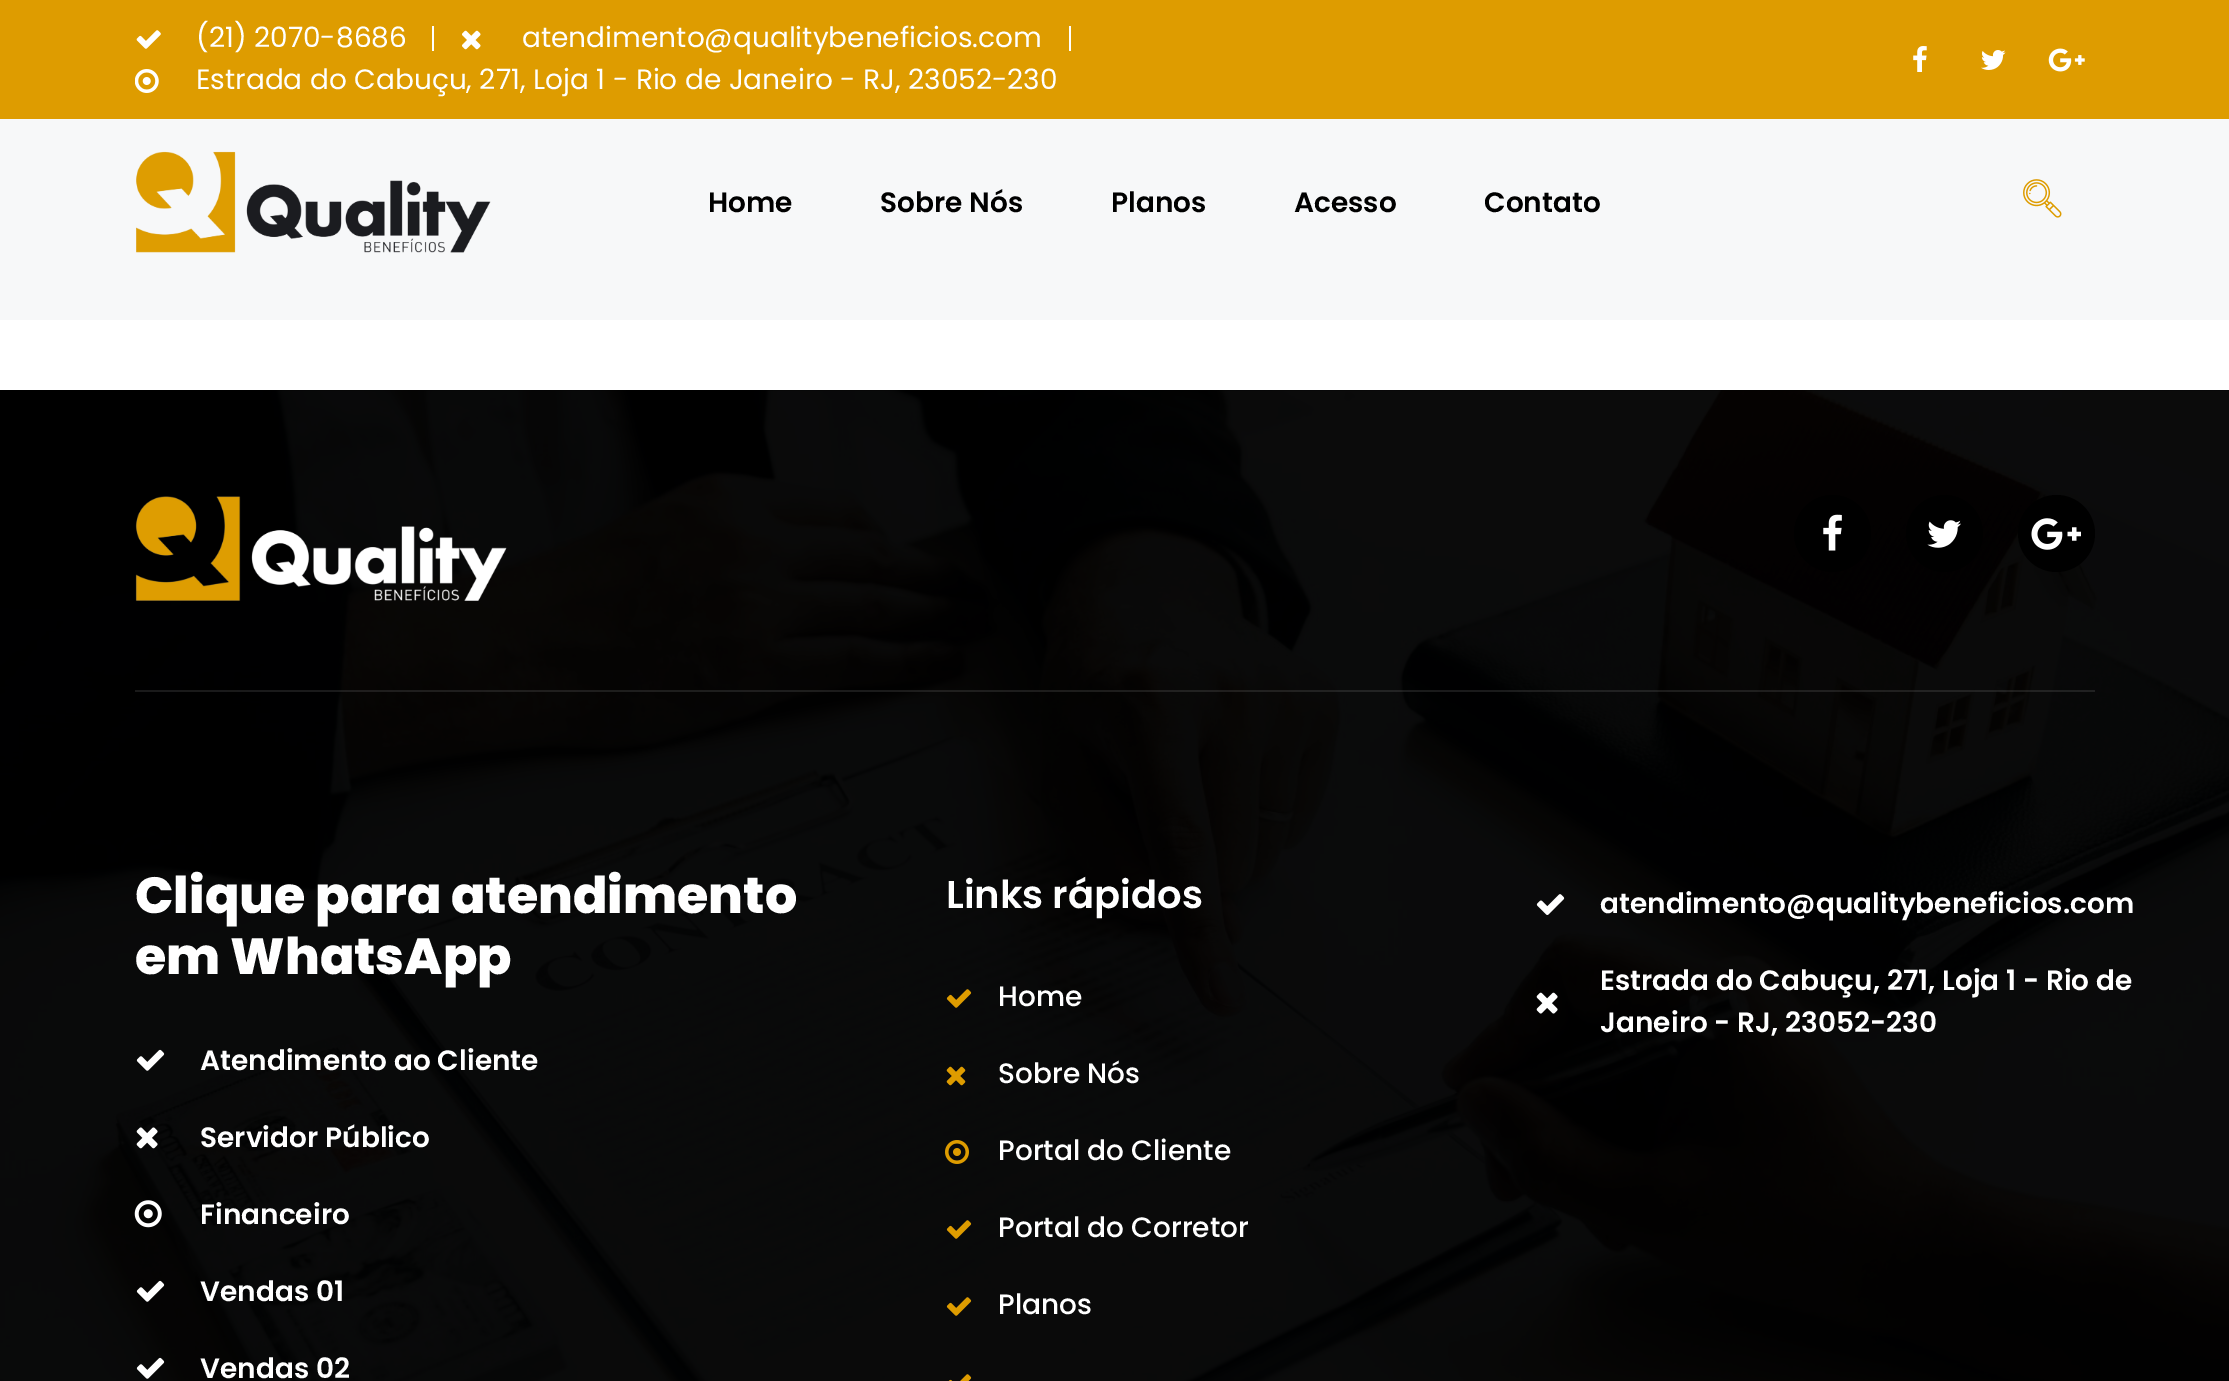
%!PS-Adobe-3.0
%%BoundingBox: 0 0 2229 1381
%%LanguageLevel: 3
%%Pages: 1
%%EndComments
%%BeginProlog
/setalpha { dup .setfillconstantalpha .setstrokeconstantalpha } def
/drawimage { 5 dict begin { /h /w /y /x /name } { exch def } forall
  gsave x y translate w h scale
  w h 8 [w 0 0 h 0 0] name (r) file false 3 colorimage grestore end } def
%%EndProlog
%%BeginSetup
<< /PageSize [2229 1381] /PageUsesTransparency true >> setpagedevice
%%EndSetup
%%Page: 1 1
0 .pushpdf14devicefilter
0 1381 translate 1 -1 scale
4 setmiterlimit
0.969 0.973 0.976 setrgbcolor
0 0 2229 1381 rectfill
0.871 0.612 0 setrgbcolor
0 0 2229 119 rectfill
(images/1.raw) 136 30 25 19 drawimage
1 setgray
432 26 2 25 rectfill
(images/2.raw) 462 30 19 20 drawimage
1069 26 2 25 rectfill
(images/3.raw) 135 69 24 24 drawimage
(images/4.raw) 1913 46 14 26 drawimage
(images/5.raw) 1981 50 25 20 drawimage
(images/6.raw) 2048 48 37 24 drawimage
(images/7.raw) 136 151 355 102 drawimage
(images/8.raw) 2023 179 39 39 drawimage
0 320 2229 71 rectfill
(images/9.raw) 0 390 2229 991 drawimage
0.1 setalpha
135 690 1960 2 rectfill
1 setalpha
(images/10.raw) 135 496 372 105 drawimage
0 setgray
newpath 1832.5 533.5 38.5 0 360 arc closepath fill
(images/11.raw) 1823 514 19 37 drawimage
newpath 1944.5 533.5 38.5 0 360 arc closepath fill
(images/12.raw) 1927 520 34 28 drawimage
newpath 2056.5 533.5 38.5 0 360 arc closepath fill
(images/13.raw) 2031 518 50 32 drawimage
(images/14.raw) 136 1049 29 22 drawimage
(images/15.raw) 136 1127 22 22 drawimage
(images/16.raw) 134 1200 28 28 drawimage
(images/17.raw) 136 1280 29 22 drawimage
(images/18.raw) 136 1357 29 22 drawimage
(images/19.raw) 946 989 26 19 drawimage
(images/20.raw) 946 1066 20 20 drawimage
(images/21.raw) 945 1140 24 24 drawimage
(images/22.raw) 946 1220 26 19 drawimage
(images/23.raw) 946 1297 26 19 drawimage
(images/24.raw) 948 1374 24 7 drawimage
(images/25.raw) 1536 894 29 21 drawimage
(images/26.raw) 1536 992 22 22 drawimage
/Poppins-Regular [28 0 0 -28 0 0] selectfont
1 setgray
196 47 moveto (\(21\) 2070-8686) show
522 47 moveto (atendimento@qualitybeneficios.com) show
196 89 moveto (Estrada do Cabuçu, 271, Loja 1 - Rio de Janeiro - RJ, 23052-230) show
/Poppins-SemiBold [28 0 0 -28 0 0] selectfont
0 setgray
708 212 moveto (Home) show
880 212 moveto (Sobre Nós) show
1111 212 moveto (Planos) show
1294 212 moveto (Acesso) show
1484 212 moveto (Contato) show
/Poppins-ExtraBold [50.75 0 0 -50.75 0 0] selectfont
1 setgray
135 913 moveto (Clique para atendimento) show
135 974 moveto (em WhatsApp) show
/Poppins-SemiBold [28 0 0 -28 0 0] selectfont
200 1070 moveto (Atendimento ao Cliente) show
200 1147 moveto (Servidor Público) show
200 1224 moveto (Financeiro) show
200 1301 moveto (Vendas 01) show
200 1378 moveto (Vendas 02) show
/Poppins-SemiBold [38.5 0 0 -38.5 0 0] selectfont
946 908 moveto (Links rápidos) show
/Poppins-Medium [28 0 0 -28 0 0] selectfont
998 1006 moveto (Home) show
998 1083 moveto (Sobre Nós) show
998 1160 moveto (Portal do Cliente) show
998 1237 moveto (Portal do Corretor) show
998 1314 moveto (Planos) show
/Poppins-SemiBold [28 0 0 -28 0 0] selectfont
1600 913 moveto (atendimento@qualitybeneficios.com) show
1600 990 moveto (Estrada do Cabuçu, 271, Loja 1 - Rio de) show
1600 1032 moveto (Janeiro - RJ, 23052-230) show
.poppdf14devicefilter showpage
%%EOF
